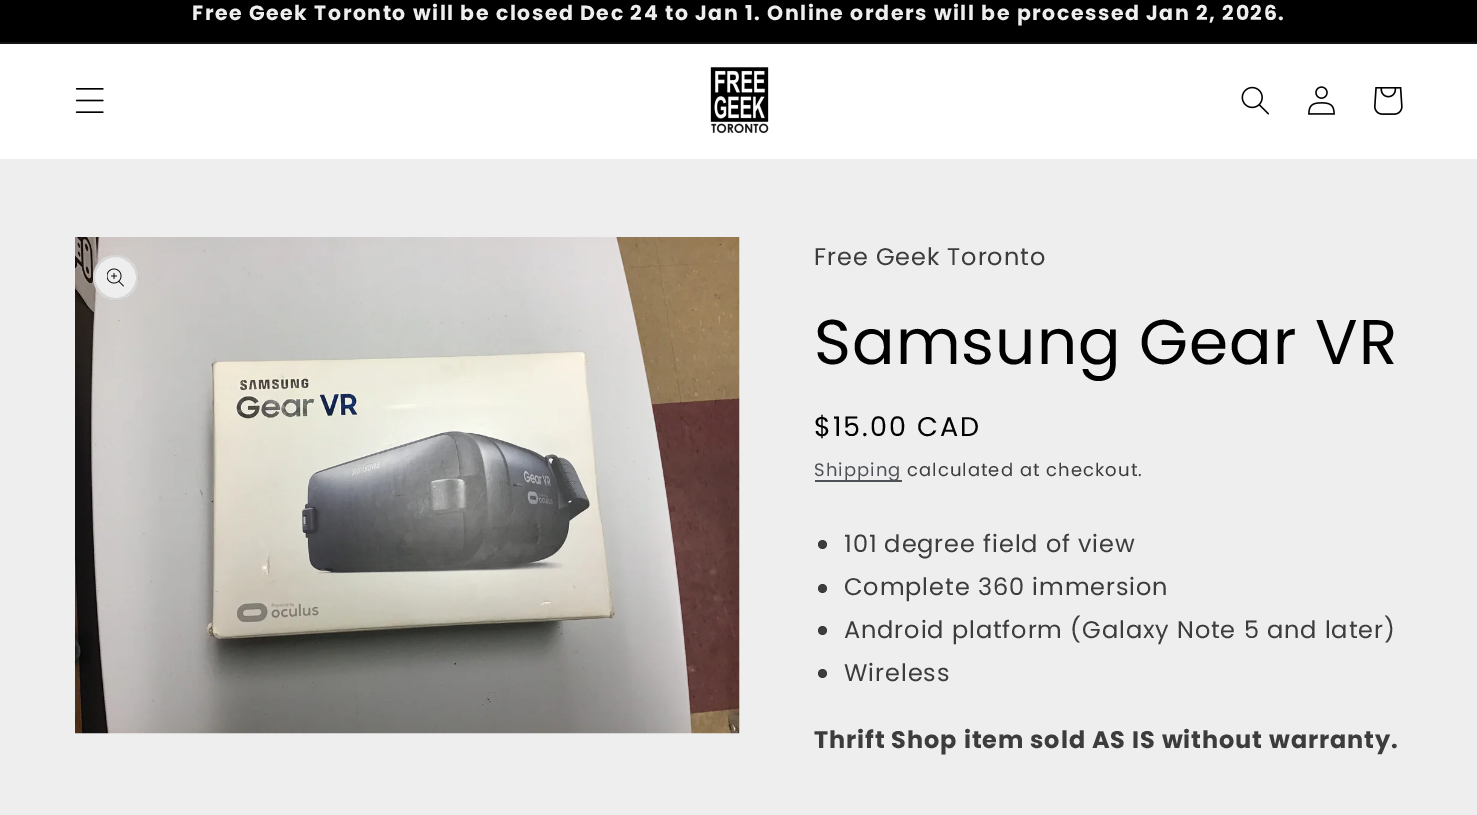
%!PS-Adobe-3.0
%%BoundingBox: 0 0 1477 815
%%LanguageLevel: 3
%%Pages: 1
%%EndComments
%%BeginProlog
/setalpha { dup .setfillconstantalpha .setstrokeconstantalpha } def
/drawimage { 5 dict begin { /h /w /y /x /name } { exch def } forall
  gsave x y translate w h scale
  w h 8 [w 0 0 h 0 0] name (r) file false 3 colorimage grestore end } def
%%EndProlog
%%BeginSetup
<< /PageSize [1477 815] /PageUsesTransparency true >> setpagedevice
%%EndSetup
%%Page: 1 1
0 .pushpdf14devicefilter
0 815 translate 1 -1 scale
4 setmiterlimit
0.933 setgray
0 0 1477 815 rectfill
0 setgray
0 0 1477 42 rectfill
0.075 setgray
0 42 1477 2 rectfill
1 setgray
0 44 1477 115 rectfill
(images/1.raw) 75 88 29 25 drawimage
(images/2.raw) 710 67 59 67 drawimage
(images/3.raw) 1241 86 28 29 drawimage
(images/4.raw) 1308 86 27 29 drawimage
(images/5.raw) 1374 87 29 28 drawimage
(images/6.raw) 75 237 665 497 drawimage
0.933 setgray
newpath 115.5 277.5 22.5 0 360 arc closepath fill
0.1 setalpha
0 setgray
2 setlinewidth
newpath 115.5 277.5 21.5 0 360 arc closepath stroke
1 setalpha
(images/7.raw) 107 268 17 19 drawimage
0.306 0.322 0.341 setrgbcolor
815 480 87 2 rectfill
0.235 setgray
newpath 822.5 544.5 4.5 0 360 arc closepath fill
newpath 822.5 588.5 4.5 0 360 arc closepath fill
newpath 822.5 630.5 4.5 0 360 arc closepath fill
newpath 822.5 673.5 4.5 0 360 arc closepath fill
/Poppins-Bold [20.48 0 0 -20.48 0 0] selectfont
0.933 setgray
192 20 moveto 1.5 0 (Free Geek Toronto will be closed Dec 24 to Jan 1. Online orders will be processed Jan 2, 2026.) ashow
/Poppins-Regular [24 0 0 -24 0 0] selectfont
0.235 setgray
814 265 moveto 0.9 0 (Free Geek Toronto) ashow
/Poppins-Regular [63 0 0 -63 0 0] selectfont
0 setgray
814 364 moveto 1 0 (Samsung Gear VR) ashow
/Poppins-Regular [27 0 0 -27 0 0] selectfont
814 436 moveto 2 0 ($15.00 CAD) ashow
/Poppins-Regular [18 0 0 -18 0 0] selectfont
0.306 0.322 0.337 setrgbcolor
814 476 moveto 1.05 0 (Shipping) ashow
0.235 setgray
907 476 moveto 1.05 0 (calculated at checkout.) ashow
/Poppins-Regular [24 0 0 -24 0 0] selectfont
844 552 moveto 0.9 0 (101 degree field of view) ashow
844 595 moveto 0.9 0 (Complete 360 immersion) ashow
844 638 moveto 0.9 0 (Android platform \(Galaxy Note 5 and later\)) ashow
844 681 moveto 0.9 0 (Wireless) ashow
/Poppins-Bold [24 0 0 -24 0 0] selectfont
814 748 moveto 0.9 0 (Thrift Shop item sold AS IS without warranty.) ashow
.poppdf14devicefilter showpage
%%EOF
